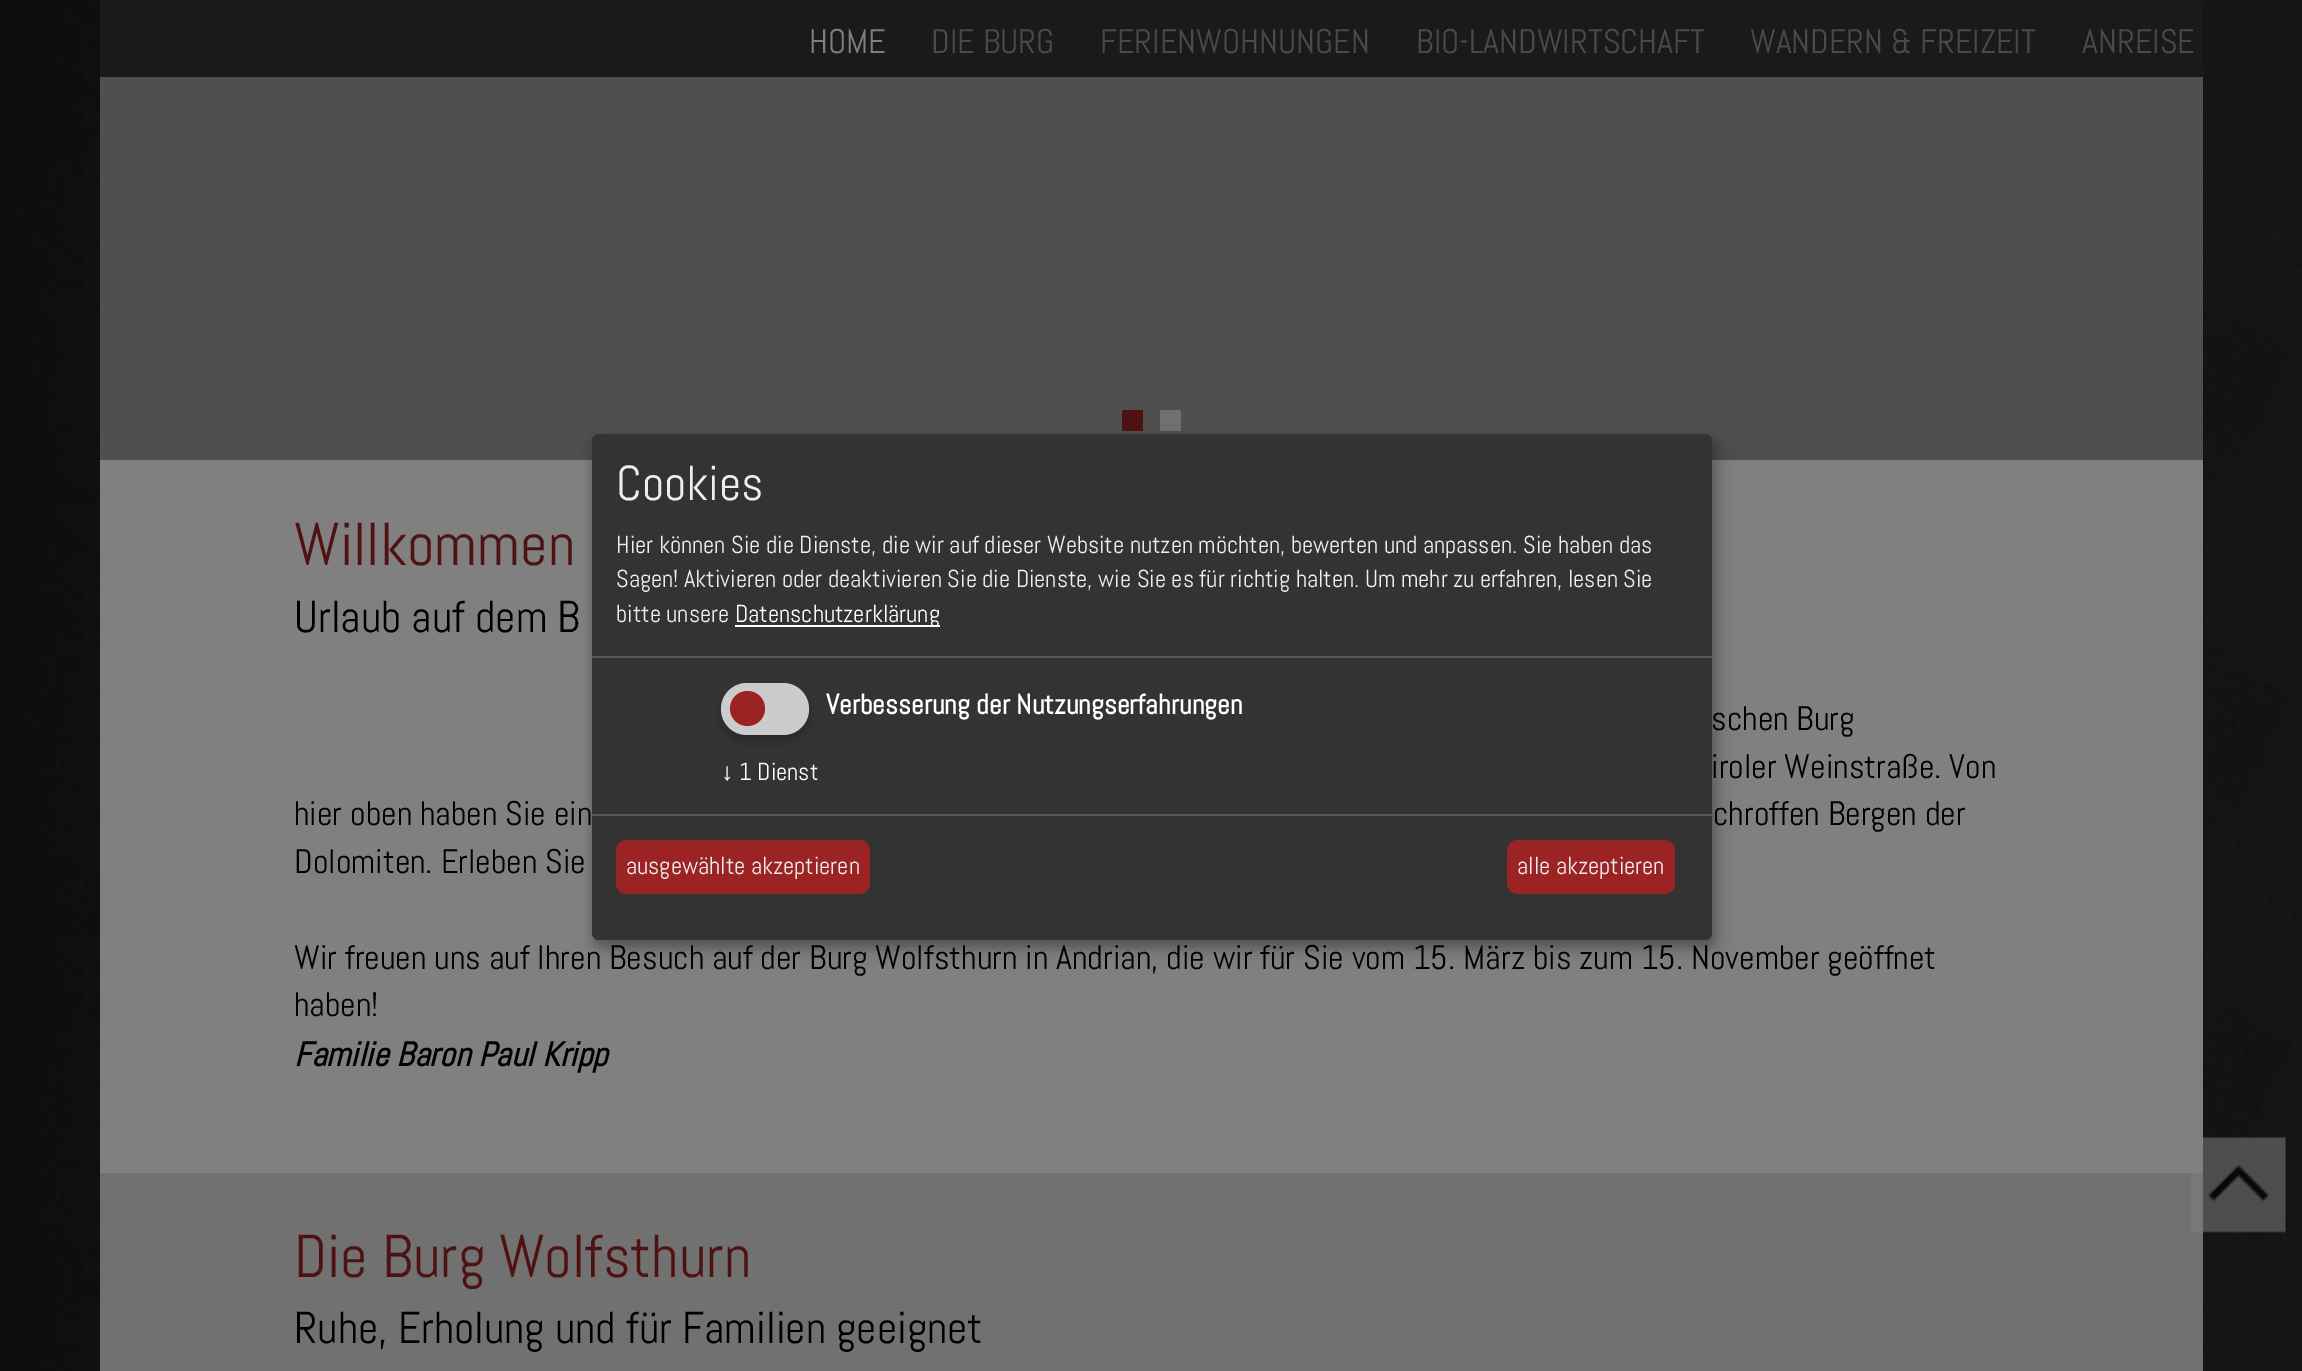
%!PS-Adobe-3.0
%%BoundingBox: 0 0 2302 1371
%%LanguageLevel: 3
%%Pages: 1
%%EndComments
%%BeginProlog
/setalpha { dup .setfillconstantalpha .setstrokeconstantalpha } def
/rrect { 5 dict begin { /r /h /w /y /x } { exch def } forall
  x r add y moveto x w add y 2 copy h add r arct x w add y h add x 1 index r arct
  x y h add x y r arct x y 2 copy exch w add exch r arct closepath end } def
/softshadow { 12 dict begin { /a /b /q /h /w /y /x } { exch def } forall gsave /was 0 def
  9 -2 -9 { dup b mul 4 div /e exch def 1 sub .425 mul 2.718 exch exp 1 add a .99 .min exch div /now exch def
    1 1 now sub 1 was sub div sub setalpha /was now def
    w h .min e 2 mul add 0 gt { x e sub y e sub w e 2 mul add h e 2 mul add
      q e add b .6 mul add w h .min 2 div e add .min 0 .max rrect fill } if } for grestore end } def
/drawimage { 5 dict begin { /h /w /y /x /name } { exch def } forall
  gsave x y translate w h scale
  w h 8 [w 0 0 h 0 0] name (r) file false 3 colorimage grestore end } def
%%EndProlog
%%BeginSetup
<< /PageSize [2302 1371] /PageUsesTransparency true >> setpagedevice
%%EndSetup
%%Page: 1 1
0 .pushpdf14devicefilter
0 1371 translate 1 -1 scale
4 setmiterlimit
1 setgray
0 0 2302 1371 rectfill
(images/1.raw) 0 0 2302 1371 drawimage
0.102 setgray
100 0 2103 77 rectfill
0.31 setgray
100 77 2103 383 rectfill
0.306 0.071 0.071 setrgbcolor
1122 410 21 21 rectfill
0.439 setgray
1160 410 21 21 rectfill
0.502 setgray
100 460 2103 713 rectfill
0.443 setgray
100 1173 2103 198 rectfill
(images/2.raw) 2191 1137 95 96 drawimage
0 setgray
600 443 1120 506 7 9 0.19 softshadow
592 441 1120 506 7 5 0.2 softshadow
0.2 setgray
592 434 1120 506 7 rrect fill
0.333 setgray
592 656 1120 2 rectfill
1 setgray
735 625 205 2 rectfill
0 setgray
721 690 88 52 26 5 0.2 softshadow
0.8 setgray
721 683 88 52 26 rrect fill
0.608 0.137 0.137 setrgbcolor
newpath 747.5 708.5 17.5 0 360 arc closepath fill
0.333 setgray
592 814 1120 2 rectfill
0.608 0.137 0.137 setrgbcolor
616 840 254 54 11 rrect fill
1507 840 168 54 11 rrect fill
/Abel-Regular [34.1 0 0 -34.1 0 0] selectfont
0.502 setgray
809 53 moveto (HOME) show
0.29 setgray
931 53 moveto (DIE BURG) show
1100 53 moveto (FERIENWOHNUNGEN) show
1416 53 moveto (BIO-LANDWIRTSCHAFT) show
1750 53 moveto (WANDERN & FREIZEIT) show
2082 53 moveto (ANREISE) show
/Abel-Regular [60.5 0 0 -60.5 0 0] selectfont
0.306 0.071 0.071 setrgbcolor
294 565 moveto (Willkommen) show
/Abel-Regular [44.6 0 0 -44.6 0 0] selectfont
0 setgray
294 632 moveto (Urlaub auf dem B) show
/Abel-Regular [34.1 0 0 -34.1 0 0] selectfont
1711 730 moveto (schen Burg) show
1711 778 moveto (iroler Weinstraße. Von) show
294 825 moveto (hier oben haben Sie ein) show
1713 825 moveto (chroffen Bergen der) show
294 873 moveto (Dolomiten. Erleben Sie) show
294 969 moveto (Wir freuen uns auf Ihren Besuch auf der Burg Wolfsthurn in Andrian, die wir für Sie vom 15. März bis zum 15. November geöffnet) show
294 1016 moveto (haben!) show
/Abel-BoldItalic [34.1 0 0 -34.1 0 0] selectfont
294 1066 moveto (Familie Baron Paul Kripp) show
/Abel-Regular [60.5 0 0 -60.5 0 0] selectfont
0.306 0.071 0.071 setrgbcolor
294 1277 moveto (Die Burg Wolfsthurn) show
/Abel-Regular [44.6 0 0 -44.6 0 0] selectfont
0 setgray
294 1343 moveto (Ruhe, Erholung und für Familien geeignet) show
/Abel-Regular [49 0 0 -49 0 0] selectfont
0.933 setgray
616 500 moveto (Cookies) show
/Abel-Regular [24.5 0 0 -24.5 0 0] selectfont
616 553 moveto (Hier können Sie die Dienste, die wir auf dieser Website nutzen möchten, bewerten und anpassen. Sie haben das) show
616 587 moveto (Sagen! Aktivieren oder deaktivieren Sie die Dienste, wie Sie es für richtig halten. Um mehr zu erfahren, lesen Sie) show
616 622 moveto (bitte unsere) show
1 setgray
735 622 moveto (Datenschutzerklärung) show
/Abel-Bold [28 0 0 -28 0 0] selectfont
826 714 moveto (Verbesserung der Nutzungserfahrungen) show
/LiberationSans-Regular [24.5 0 0 -24.5 0 0] selectfont
721 780 moveto (↓) show
/Abel-Regular [24.5 0 0 -24.5 0 0] selectfont
739 780 moveto (1 Dienst) show
0.933 setgray
626 874 moveto (ausgewählte akzeptieren) show
1517 874 moveto (alle akzeptieren) show
.poppdf14devicefilter showpage
%%EOF
